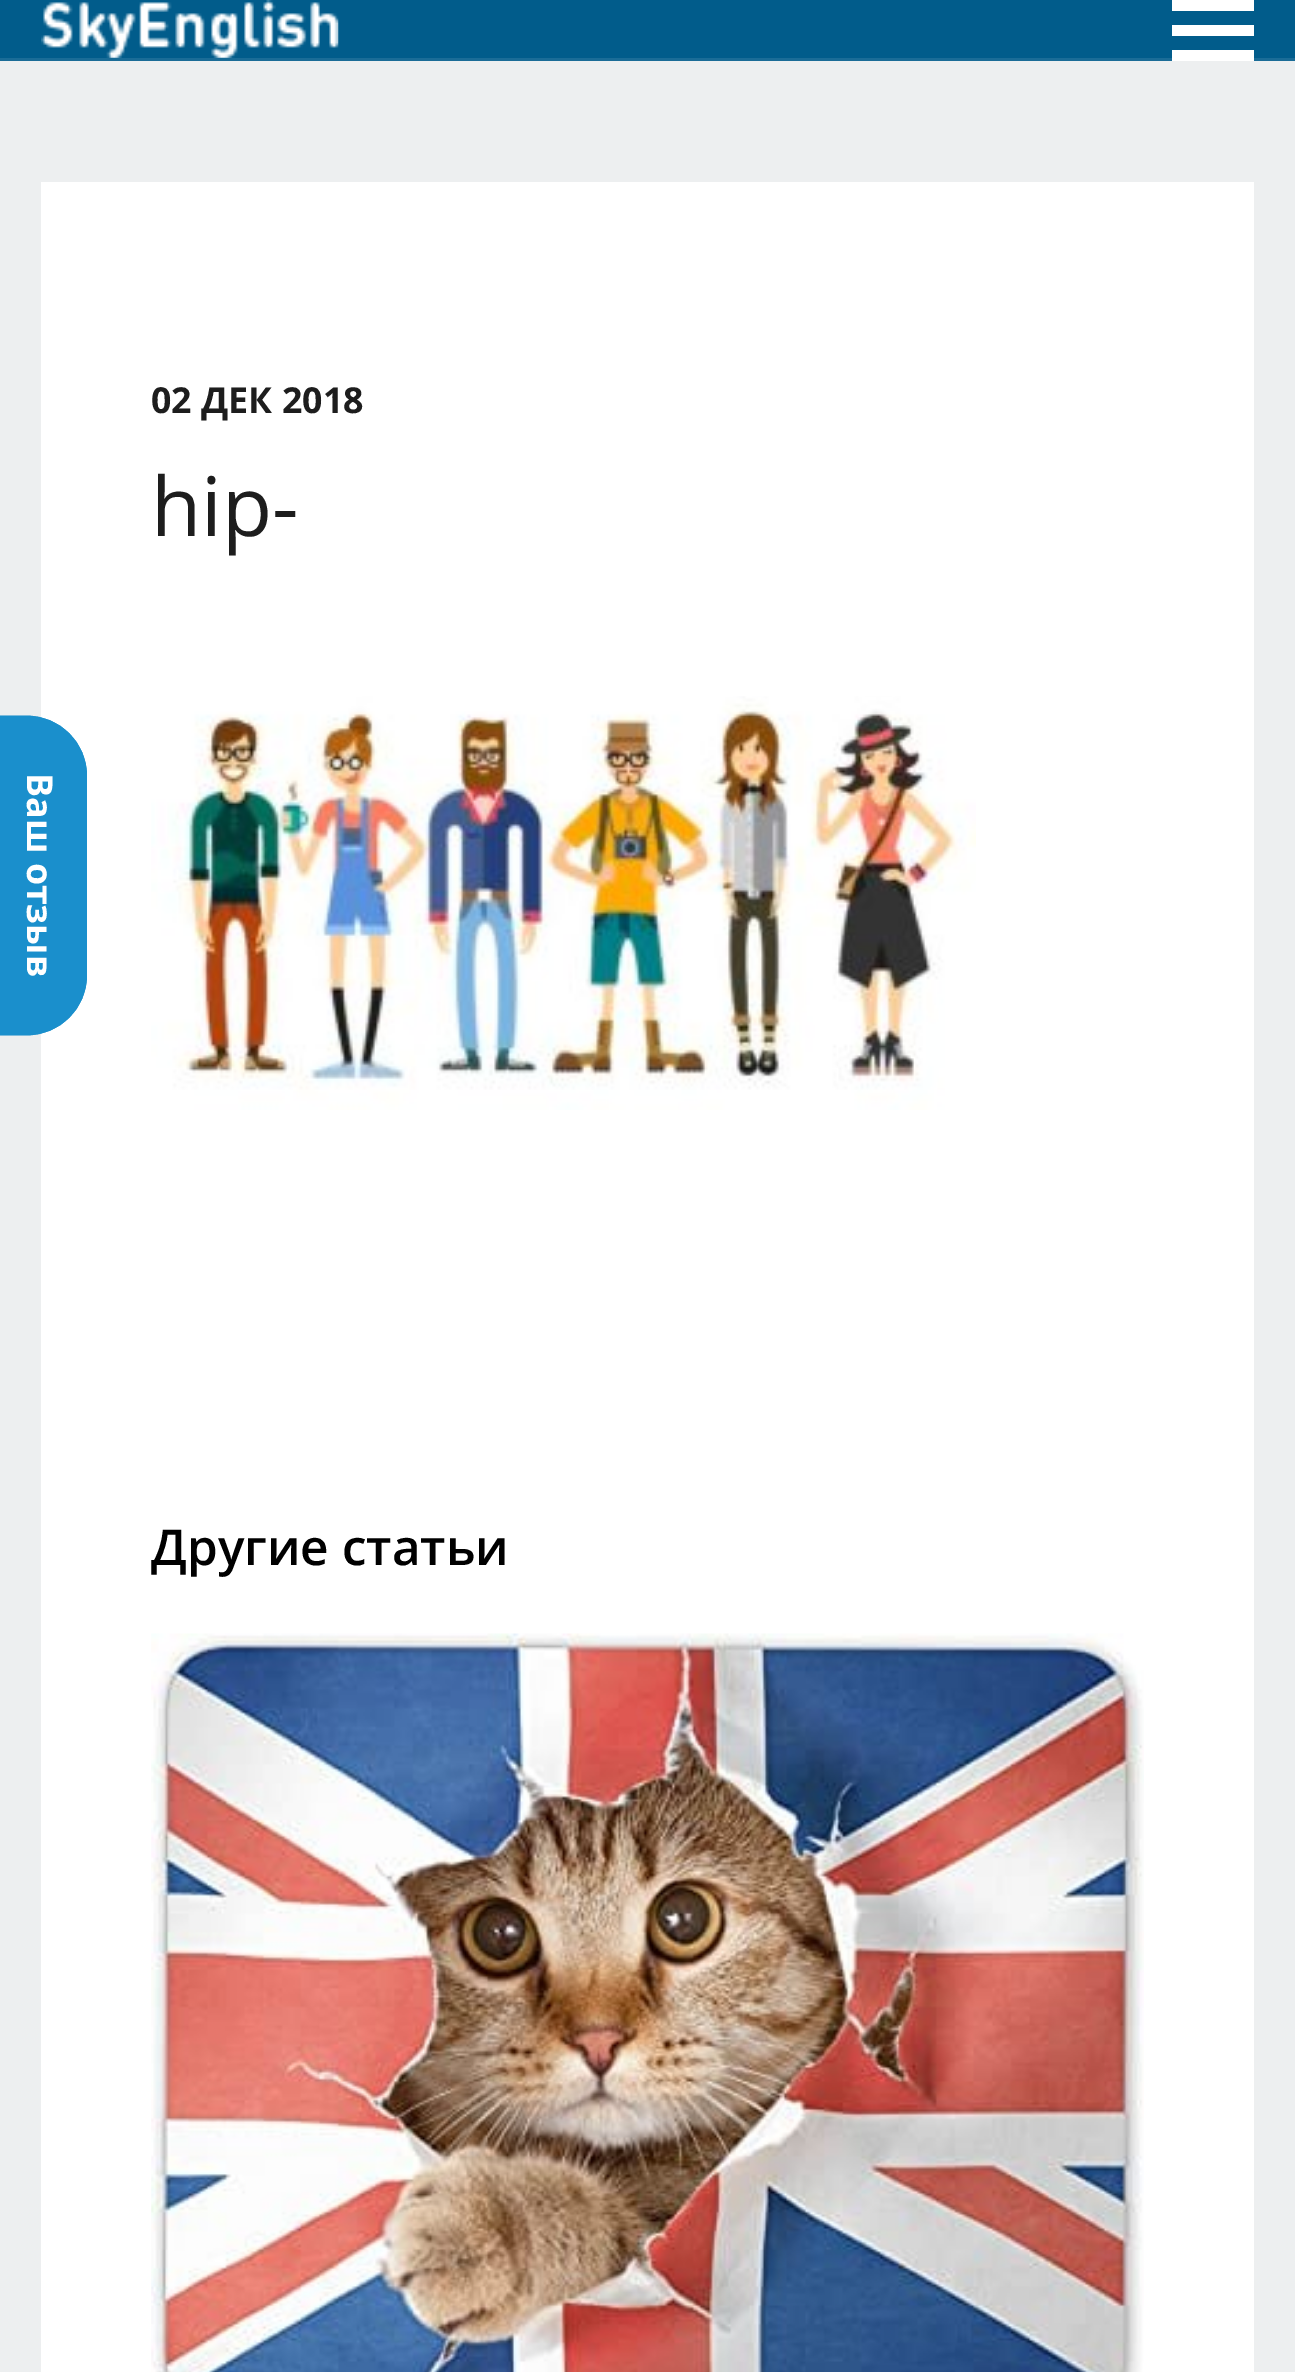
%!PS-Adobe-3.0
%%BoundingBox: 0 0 1295 2372
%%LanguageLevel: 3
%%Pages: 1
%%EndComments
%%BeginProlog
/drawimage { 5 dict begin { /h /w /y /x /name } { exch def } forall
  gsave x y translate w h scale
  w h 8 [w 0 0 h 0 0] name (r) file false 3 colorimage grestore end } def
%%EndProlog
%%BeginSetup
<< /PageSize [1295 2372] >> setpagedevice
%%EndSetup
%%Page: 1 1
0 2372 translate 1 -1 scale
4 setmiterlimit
0.929 0.937 0.941 setrgbcolor
0 0 1295 2372 rectfill
0.004 0.361 0.545 setrgbcolor
0 0 1295 58 rectfill
0.102 0.424 0.592 setrgbcolor
0 58 1295 3 rectfill
(images/1.raw) 41 0 298 58 drawimage
1 setgray
1172 0 82 11 rectfill
1172 25 82 11 rectfill
1172 50 82 11 rectfill
41 182 1213 2190 rectfill
0.102 0.561 0.8 setrgbcolor
newpath 87 776 moveto 87 975 lineto 87 1008 60 1035 27 1035 curveto -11 1035 lineto -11 716 lineto 27 716 lineto 60 716 87 743 87 776 curveto closepath fill
2.8 setlinewidth
newpath 85.5 776 moveto 85.5 975 lineto 85.5 1007.5 59.5 1034 26.5 1034 curveto -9.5 1034 lineto -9.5 717 lineto 26.5 717 lineto 59.5 717 85.5 743.5 85.5 776 curveto closepath stroke
(images/2.raw) 151 696 825 414 drawimage
(images/3.raw) 151 1633 993 739 drawimage
/OpenSans-Bold [35.75 0 0 -35.75 0 0] selectfont
1 setgray
gsave 27 773 translate 90 rotate 0 0 moveto (Ваш отзыв) show grestore
0.114 setgray
151 413 moveto (02 ДЕК 2018) show
/OpenSans-Regular [82 0 0 -82 0 0] selectfont
151 536 moveto (hip-) show
/OpenSans-SemiBold [49.5 0 0 -49.5 0 0] selectfont
0 setgray
151 1565 moveto (Другие статьи) show
showpage
%%EOF
